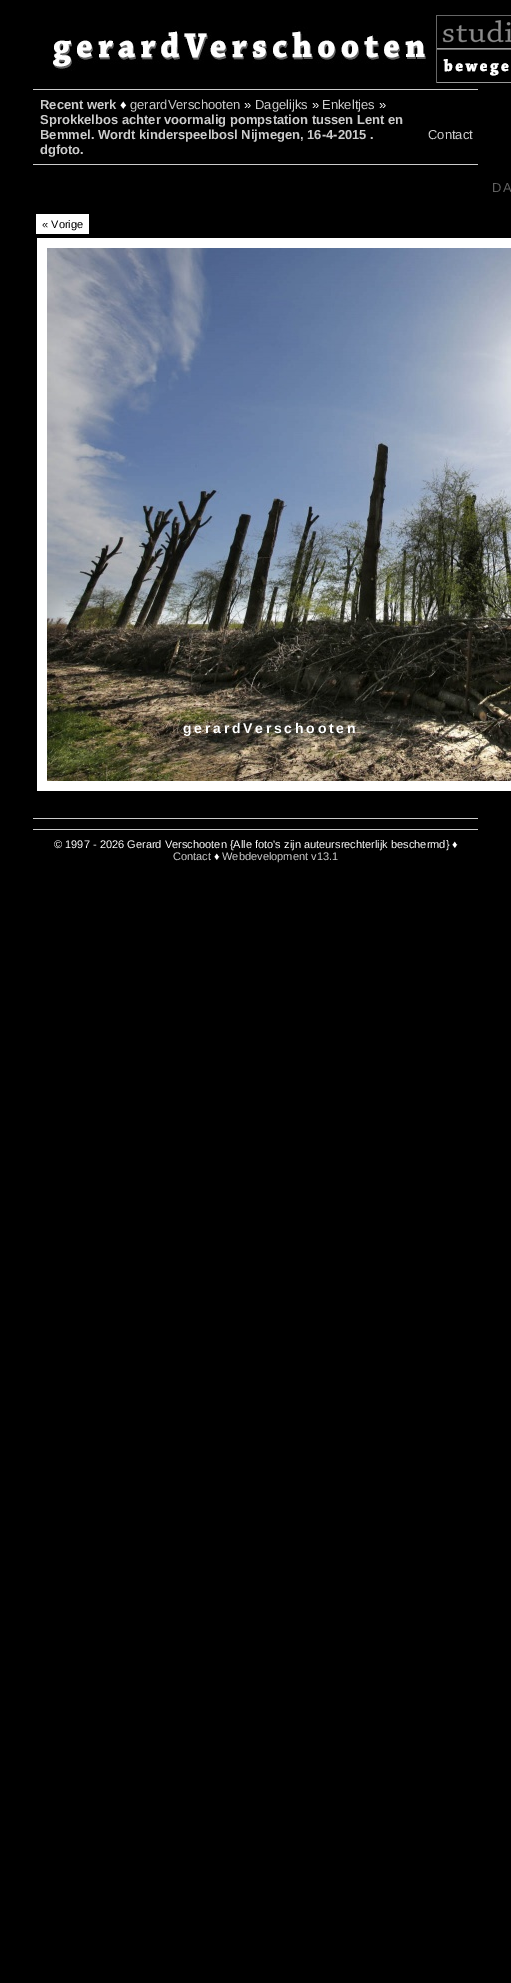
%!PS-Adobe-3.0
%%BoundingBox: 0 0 511 1983
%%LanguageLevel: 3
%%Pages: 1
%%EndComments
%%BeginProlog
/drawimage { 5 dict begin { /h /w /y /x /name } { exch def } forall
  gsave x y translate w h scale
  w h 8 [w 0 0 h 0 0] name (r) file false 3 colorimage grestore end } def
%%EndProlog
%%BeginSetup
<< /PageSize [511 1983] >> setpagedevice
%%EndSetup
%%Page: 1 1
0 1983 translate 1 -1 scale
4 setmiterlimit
0 setgray
0 0 511 1983 rectfill
(images/1.raw) 53 26 373 45 drawimage
0.4 setgray
436 15 75 1 rectfill
0.6 setgray
436 48 75 1 rectfill
0.4 setgray
436 15 1 34 rectfill
(images/2.raw) 442 20 69 23 drawimage
436 49 75 1 rectfill
0.6 setgray
436 82 75 1 rectfill
0.4 setgray
436 49 1 34 rectfill
(images/3.raw) 443 59 66 17 drawimage
0.8 setgray
33 89 445 1 rectfill
33 164 445 1 rectfill
1 setgray
36 214 53 20 rectfill
37 238 474 553 rectfill
(images/4.raw) 47 248 464 533 drawimage
0.8 setgray
33 818 445 1 rectfill
33 829 445 1 rectfill
/LiberationSans-Bold [13 0 0 -13 0 0] selectfont
40 109 moveto (Recent werk) show
/LiberationSans-Regular [13 0 0 -13 0 0] selectfont
1 setgray
120 109 moveto (♦) show
0.8 setgray
130 109 moveto (gerardVerschooten) show
1 setgray
244 109 moveto (») show
0.8 setgray
255 109 moveto (Dagelijks) show
1 setgray
312 109 moveto (») show
0.8 setgray
322 109 moveto (Enkeltjes) show
1 setgray
379 109 moveto (») show
/LiberationSans-Bold [13 0 0 -13 0 0] selectfont
0.8 setgray
40 124 moveto (Sprokkelbos achter voormalig pompstation tussen Lent en) show
40 139 moveto (Bemmel. Wordt kinderspeelbosl Nijmegen, 16-4-2015 .) show
40 154 moveto (dgfoto.) show
/LiberationSans-Regular [13 0 0 -13 0 0] selectfont
428 139 moveto (Contact) show
0.38 setgray
492 192 moveto 2 0 (DA) ashow
/LiberationSans-Regular [11.05 0 0 -11.05 0 0] selectfont
0 setgray
42 228 moveto (« Vorige) show
/LiberationSans-Bold [14 0 0 -14 0 0] selectfont
1 setgray
183 733 moveto 2.75 0 (gerardVerschooten) ashow
/LiberationSans-Regular [11.05 0 0 -11.05 0 0] selectfont
54 848 moveto (© 1997 - 2026 Gerard Verschooten {Alle foto's zijn auteursrechterlijk beschermd} ♦) show
0.8 setgray
173 860 moveto (Contact) show
1 setgray
214 860 moveto (♦) show
0.8 setgray
222 860 moveto (Webdevelopment v13.1) show
showpage
%%EOF
